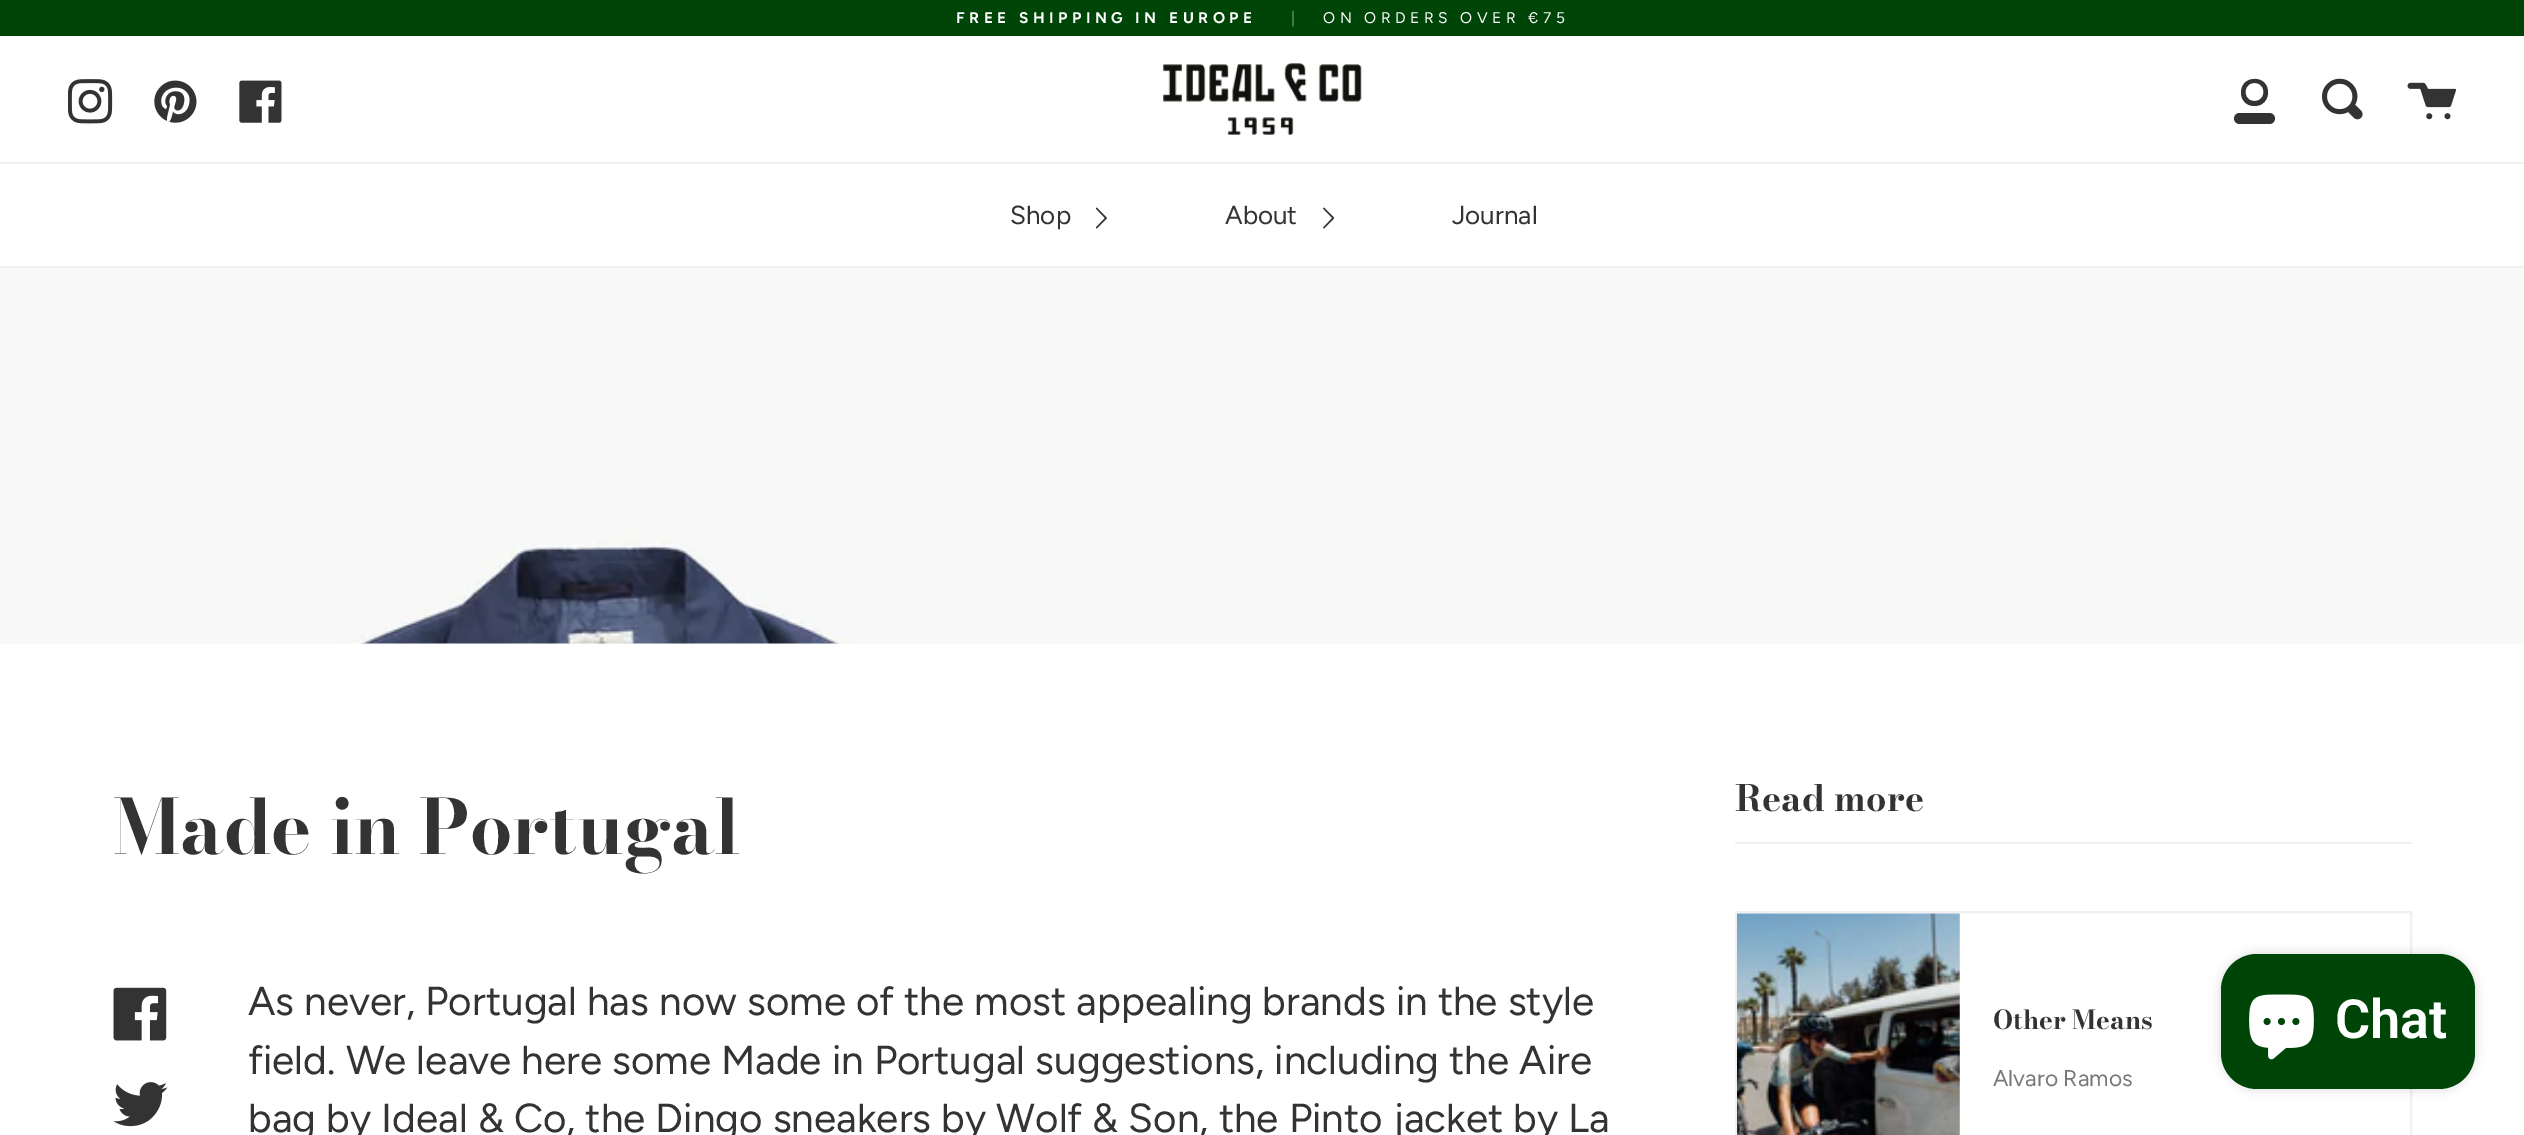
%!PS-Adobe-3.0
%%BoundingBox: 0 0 2524 1135
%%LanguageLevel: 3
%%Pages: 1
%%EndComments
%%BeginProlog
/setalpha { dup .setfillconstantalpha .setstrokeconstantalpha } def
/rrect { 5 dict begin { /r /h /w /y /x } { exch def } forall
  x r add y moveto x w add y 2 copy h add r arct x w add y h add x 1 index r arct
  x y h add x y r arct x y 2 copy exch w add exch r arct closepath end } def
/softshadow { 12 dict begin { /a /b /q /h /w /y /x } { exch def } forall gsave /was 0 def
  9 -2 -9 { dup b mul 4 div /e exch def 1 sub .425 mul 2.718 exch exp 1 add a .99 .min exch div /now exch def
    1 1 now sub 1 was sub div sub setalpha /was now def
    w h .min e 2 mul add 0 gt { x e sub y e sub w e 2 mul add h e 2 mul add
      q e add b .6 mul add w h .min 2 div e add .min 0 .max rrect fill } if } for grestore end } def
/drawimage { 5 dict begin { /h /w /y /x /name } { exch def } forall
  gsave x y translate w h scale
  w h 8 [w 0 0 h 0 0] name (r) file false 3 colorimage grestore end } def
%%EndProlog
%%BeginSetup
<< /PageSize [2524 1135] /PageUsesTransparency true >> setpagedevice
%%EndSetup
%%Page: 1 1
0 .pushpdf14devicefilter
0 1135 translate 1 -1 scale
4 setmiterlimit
1 setgray
0 0 2524 1135 rectfill
0 0.271 0.031 setrgbcolor
0 0 2524 36 rectfill
(images/1.raw) 68 79 45 45 drawimage
(images/2.raw) 154 80 43 43 drawimage
(images/3.raw) 239 80 43 43 drawimage
(images/4.raw) 1163 63 199 72 drawimage
0.2 setgray
newpath 2254.5 106 moveto 2236.5 106 2236.5 79 2254.5 79 curveto 2272.5 78.5 2272.5 106 2254.5 106 curveto closepath 2254.5 101 moveto 2266.5 101 2266.5 83 2254.5 83 curveto 2242.5 83 2242.5 101 2254.5 101 curveto closepath fill
2234 113 41 11 5.5 rrect fill
(images/5.raw) 2322 78 41 42 drawimage
(images/6.raw) 2407 82 50 38 drawimage
0.941 setgray
0 162 2524 2 rectfill
0 266 2524 2 rectfill
(images/7.raw) 1096 207 11 22 drawimage
(images/8.raw) 1323 207 11 22 drawimage
(images/9.raw) 0 268 2524 376 drawimage
(images/10.raw) 113 987 54 54 drawimage
(images/11.raw) 113 1082 55 45 drawimage
1735 842 677 2 rectfill
2 setlinewidth
1736 912 675 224 rectstroke
(images/12.raw) 1737 913 223 222 drawimage
0 setgray
2221 954 254 135 36 5.5 0.15 softshadow
0 0.271 0.031 setrgbcolor
2221 954 254 135 36 rrect fill
(images/13.raw) 2249 994 65 66 drawimage
/Figtree-Bold [15.5 0 0 -15.5 0 0] selectfont
1 setgray
956 23 moveto 4.5 0 (FREE SHIPPING IN EUROPE) ashow
/Figtree-Regular [15.5 0 0 -15.5 0 0] selectfont
0.502 0.635 0.518 setrgbcolor
1291 23 moveto 4.5 0 (|) ashow
1 setgray
1323 23 moveto 4.5 0 (ON ORDERS OVER €75) ashow
/Figtree-Regular [26 0 0 -26 0 0] selectfont
0.2 setgray
1010 224 moveto (Shop) show
1225 224 moveto (About) show
1452 224 moveto (Journal) show
/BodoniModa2-Bold [75.25 0 0 -75.25 0 0] selectfont
113 854 moveto (Made in Portugal) show
/Figtree-Regular [40.5 0 0 -40.5 0 0] selectfont
248 1015 moveto (As never, Portugal has now some of the most appealing brands in the style) show
248 1074 moveto (field. We leave here some Made in Portugal suggestions, including the Aire) show
248 1132 moveto (bag by Ideal & Co, the Dingo sneakers by Wolf & Son, the Pinto jacket by La) show
/BodoniModa-Bold [36 0 0 -36 0 0] selectfont
1735 811 moveto (Read more) show
/BodoniModa-Bold [26 0 0 -26 0 0] selectfont
1993 1029 moveto (Other Means) show
/Figtree-Regular [22.75 0 0 -22.75 0 0] selectfont
0.471 setgray
1993 1086 moveto (Alvaro Ramos) show
/Roboto-SemiBold [54 0 0 -54 0 0] selectfont
1 setgray
2335 1038 moveto (Chat) show
.poppdf14devicefilter showpage
%%EOF
